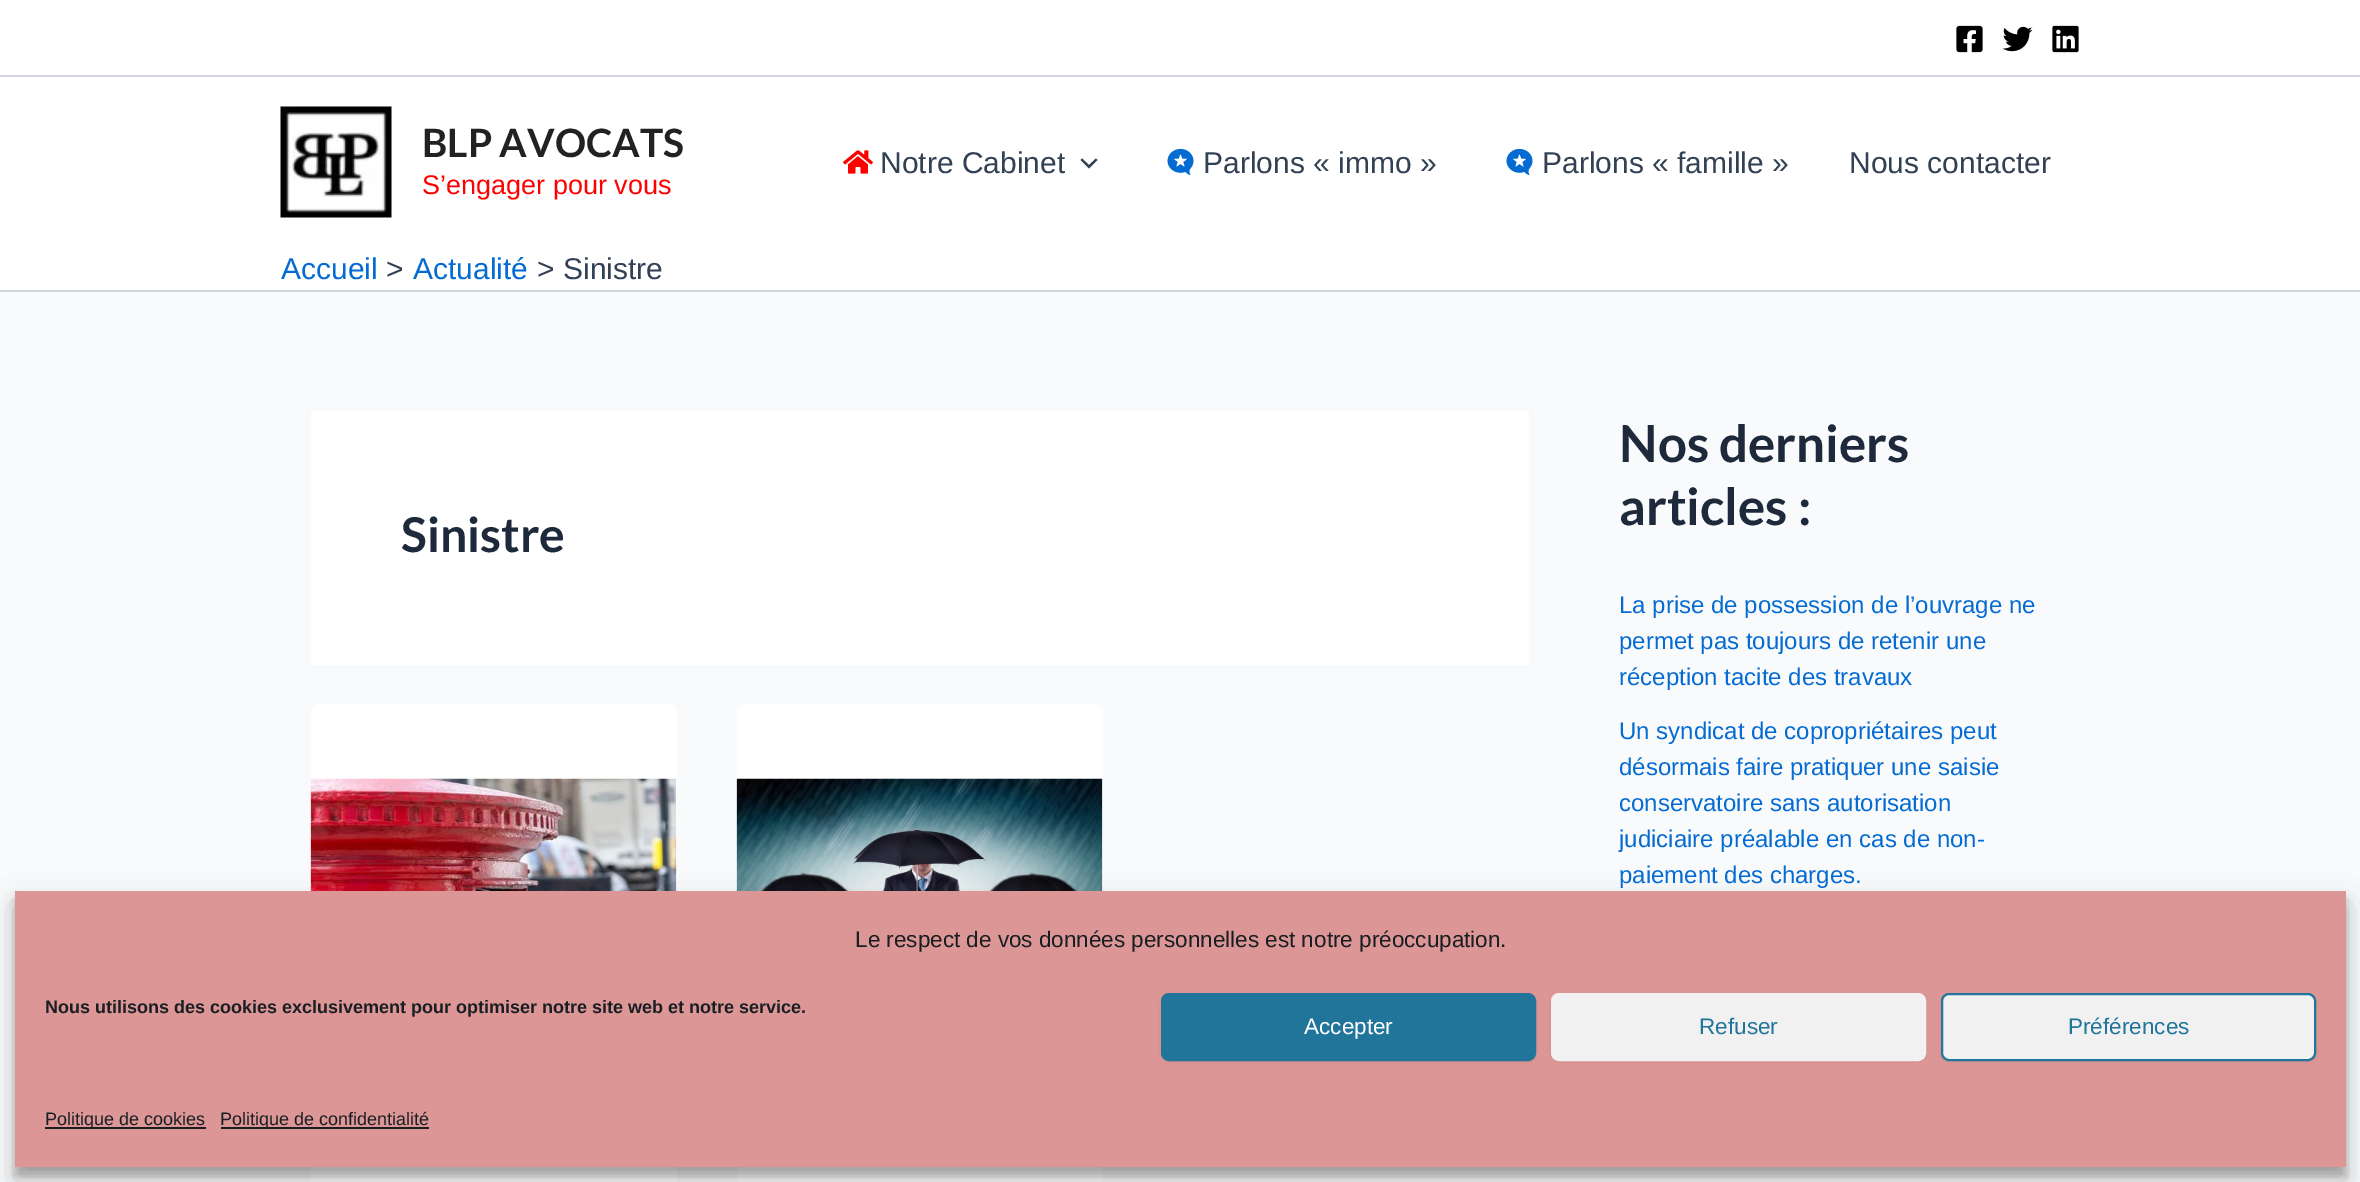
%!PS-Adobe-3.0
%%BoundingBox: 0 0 2360 1182
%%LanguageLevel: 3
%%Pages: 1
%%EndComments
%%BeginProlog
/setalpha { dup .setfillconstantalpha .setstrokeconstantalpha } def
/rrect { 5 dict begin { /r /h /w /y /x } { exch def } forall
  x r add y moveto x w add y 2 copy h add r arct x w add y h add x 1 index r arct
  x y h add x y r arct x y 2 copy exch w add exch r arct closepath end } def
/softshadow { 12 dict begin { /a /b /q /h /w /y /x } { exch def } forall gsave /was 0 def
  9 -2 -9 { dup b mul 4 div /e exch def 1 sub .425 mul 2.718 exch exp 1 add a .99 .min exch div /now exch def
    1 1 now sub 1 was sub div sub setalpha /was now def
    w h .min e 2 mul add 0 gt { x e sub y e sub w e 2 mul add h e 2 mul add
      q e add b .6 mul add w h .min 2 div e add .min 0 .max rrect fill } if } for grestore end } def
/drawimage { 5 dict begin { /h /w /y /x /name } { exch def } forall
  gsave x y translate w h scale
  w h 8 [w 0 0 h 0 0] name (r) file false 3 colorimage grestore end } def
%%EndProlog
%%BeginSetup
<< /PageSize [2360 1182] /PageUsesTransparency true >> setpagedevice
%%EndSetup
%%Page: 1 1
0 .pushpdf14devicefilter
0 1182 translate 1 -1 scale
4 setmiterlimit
0.976 0.98 0.984 setrgbcolor
0 0 2360 1182 rectfill
1 setgray
0 0 2360 75 rectfill
0.82 0.835 0.859 setrgbcolor
0 75 2360 2 rectfill
(images/1.raw) 1956 25 27 28 drawimage
(images/2.raw) 2003 26 30 26 drawimage
(images/3.raw) 2052 25 27 28 drawimage
1 setgray
0 77 2360 213 rectfill
0.82 0.835 0.859 setrgbcolor
0 290 2360 2 rectfill
(images/4.raw) 280 106 112 112 drawimage
(images/5.raw) 843 150 30 24 drawimage
0.2 0.255 0.333 setrgbcolor
newpath 1080.5 160 moveto 1089 168.5 lineto 1097.5 160 lineto 1096 158.5 lineto 1089 165 lineto 1082 158.5 lineto closepath fill
(images/6.raw) 1167 148 27 28 drawimage
(images/6.raw) 1506 148 27 28 drawimage
1 setgray
311 411 1218 254 rectfill
311 704 366 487 9 rrect fill
(images/7.raw) 310 778 367 113 drawimage
737 704 366 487 9 rrect fill
(images/8.raw) 736 778 367 113 drawimage
0 setgray
15 900 2331 276 0 4.5 0.23 softshadow
15 906 2331 276 0 15 0.19 softshadow
0.867 0.588 0.588 setrgbcolor
15 891 2331 276 rectfill
0 setgray
1161 995 375 67 8 1.5 0.05 softshadow
0.129 0.459 0.608 setrgbcolor
1162 994 373 66 7 rrect gsave fill grestore
2 setlinewidth
stroke
0 setgray
1551 995 375 67 8 1.5 0.05 softshadow
0.945 setgray
1552 994 373 66 7 rrect gsave fill grestore
stroke
0 setgray
1941 995 375 67 8 1.5 0.05 softshadow
0.945 setgray
1942 994 373 66 7 rrect gsave fill grestore
0.129 0.459 0.608 setrgbcolor
stroke
0.098 0.118 0.137 setrgbcolor
45 1127 161 2 rectfill
221 1127 208 2 rectfill
/Lato-Bold [39 0 0 -39 0 0] selectfont
0.133 setgray
422 157 moveto (BLP AVOCATS) show
/LiberationSans-Regular [27 0 0 -27 0 0] selectfont
0.996 0 0 setrgbcolor
422 194 moveto (S’engager pour vous) show
/LiberationSans-Regular [30 0 0 -30 0 0] selectfont
0.2 0.255 0.333 setrgbcolor
880 173 moveto (Notre Cabinet) show
1203 173 moveto (Parlons « immo ») show
1542 173 moveto (Parlons « famille ») show
1849 173 moveto (Nous contacter) show
0.016 0.42 0.824 setrgbcolor
281 279 moveto (Accueil) show
0.2 0.255 0.333 setrgbcolor
386 279 moveto (>) show
0.016 0.42 0.824 setrgbcolor
413 279 moveto (Actualité) show
0.2 0.255 0.333 setrgbcolor
537 279 moveto (>) show
563 279 moveto (Sinistre) show
/Lato-Bold [48 0 0 -48 0 0] selectfont
0.118 0.161 0.231 setrgbcolor
401 552 moveto (Sinistre) show
/Lato-Bold [51 0 0 -51 0 0] selectfont
1619 462 moveto (Nos derniers) show
1619 525 moveto (articles :) show
/LiberationSans-Regular [24 0 0 -24 0 0] selectfont
0.016 0.42 0.824 setrgbcolor
1619 613 moveto (La prise de possession de l’ouvrage ne) show
1619 649 moveto (permet pas toujours de retenir une) show
1619 685 moveto (réception tacite des travaux) show
1619 739 moveto (Un syndicat de copropriétaires peut) show
1619 775 moveto (désormais faire pratiquer une saisie) show
1619 811 moveto (conservatoire sans autorisation) show
1619 847 moveto (judiciaire préalable en cas de non-) show
1619 883 moveto (paiement des charges.) show
/LiberationSans-Regular [22.5 0 0 -22.5 0 0] selectfont
0.098 0.118 0.137 setrgbcolor
855 947 moveto (Le respect de vos données personnelles est notre préoccupation.) show
/LiberationSans-Bold [18 0 0 -18 0 0] selectfont
45 1013 moveto (Nous utilisons des cookies exclusivement pour optimiser notre site web et notre service.) show
/LiberationSans-Regular [22.5 0 0 -22.5 0 0] selectfont
1 setgray
1304 1034 moveto (Accepter) show
0.129 0.459 0.608 setrgbcolor
1699 1034 moveto (Refuser) show
2068 1034 moveto (Préférences) show
/LiberationSans-Regular [18 0 0 -18 0 0] selectfont
0.098 0.118 0.137 setrgbcolor
45 1125 moveto (Politique de cookies) show
220 1125 moveto (Politique de confidentialité) show
.poppdf14devicefilter showpage
%%EOF
